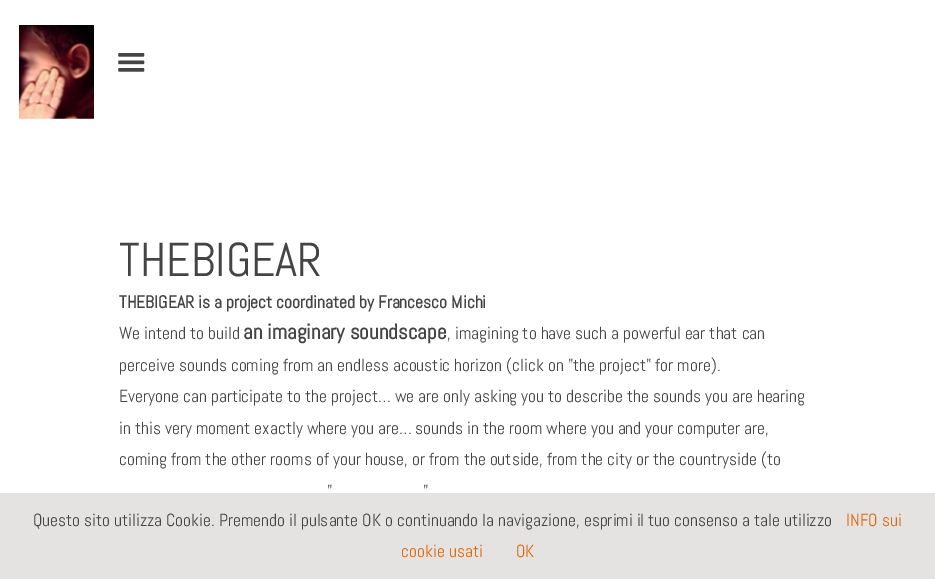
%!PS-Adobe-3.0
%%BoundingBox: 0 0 935 579
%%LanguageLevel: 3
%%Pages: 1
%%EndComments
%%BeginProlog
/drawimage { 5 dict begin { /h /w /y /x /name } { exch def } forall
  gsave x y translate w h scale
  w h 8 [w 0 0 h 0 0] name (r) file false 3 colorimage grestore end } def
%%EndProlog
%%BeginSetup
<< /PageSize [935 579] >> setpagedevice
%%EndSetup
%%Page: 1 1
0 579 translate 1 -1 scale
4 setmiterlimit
1 setgray
0 0 935 579 rectfill
(images/1.raw) 19 25 75 94 drawimage
(images/2.raw) 118 53 27 19 drawimage
0.894 0.89 0.886 setrgbcolor
0 493 935 86 rectfill
/Abel-Regular [47.5 0 0 -47.5 0 0] selectfont
0.267 setgray
119 276 moveto (THEBIGEAR) show
/Abel-Bold [17.5 0 0 -17.5 0 0] selectfont
119 308 moveto (THEBIGEAR is a project coordinated by Francesco Michi) show
/Abel-Regular [17.5 0 0 -17.5 0 0] selectfont
119 339 moveto (We intend to build) show
/Abel-Bold [21.25 0 0 -21.25 0 0] selectfont
243 339 moveto (an imaginary soundscape) show
/Abel-Regular [17.5 0 0 -17.5 0 0] selectfont
447 339 moveto (, imagining to have such a powerful ear that can) show
119 371 moveto (perceive sounds coming from an endless acoustic horizon \(click on "the project" for more\).) show
119 402 moveto (Everyone can participate to the project… we are only asking you to describe the sounds you are hearing) show
119 434 moveto (in this very moment exactly where you are… sounds in the room where you and your computer are,) show
119 465 moveto (coming from the other rooms of your house, or from the outside, from the city or the countryside \(to) show
327 497 moveto (") show
423 497 moveto (") show
33 526 moveto (Questo sito utilizza Cookie. Premendo il pulsante OK o continuando la navigazione, esprimi il tuo consenso a tale utilizzo) show
0.878 0.404 0.02 setrgbcolor
846 526 moveto (INFO sui) show
401 557 moveto (cookie usati) show
516 557 moveto (OK) show
showpage
%%EOF
